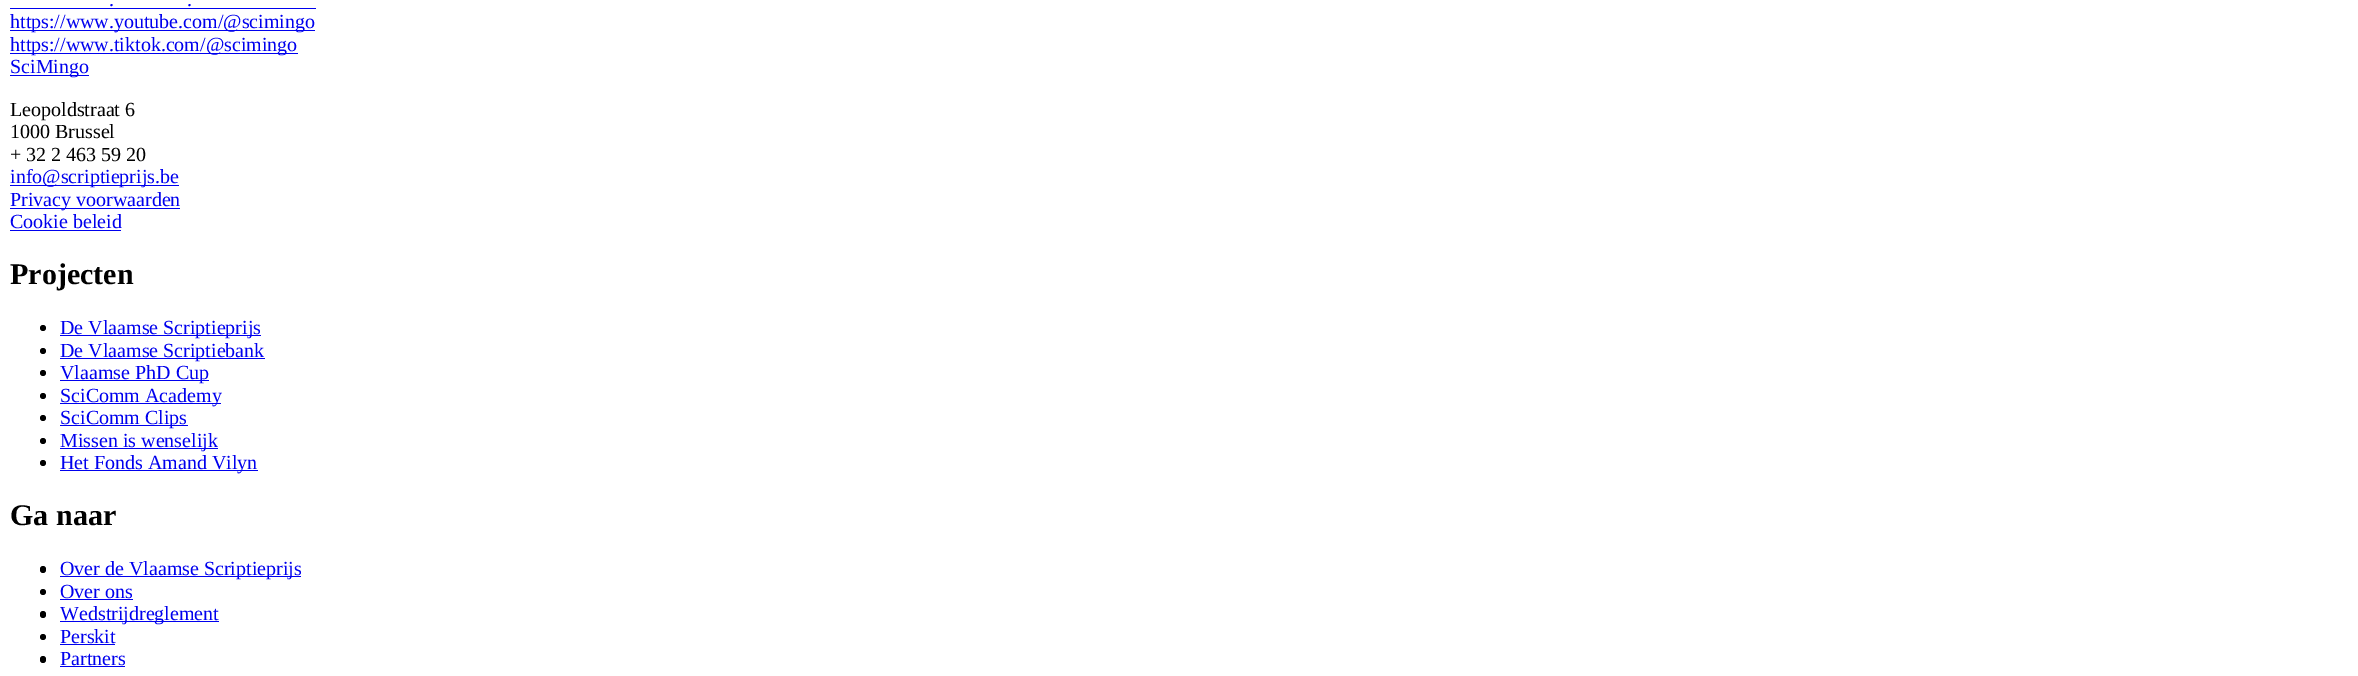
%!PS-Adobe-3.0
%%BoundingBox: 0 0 2358 676
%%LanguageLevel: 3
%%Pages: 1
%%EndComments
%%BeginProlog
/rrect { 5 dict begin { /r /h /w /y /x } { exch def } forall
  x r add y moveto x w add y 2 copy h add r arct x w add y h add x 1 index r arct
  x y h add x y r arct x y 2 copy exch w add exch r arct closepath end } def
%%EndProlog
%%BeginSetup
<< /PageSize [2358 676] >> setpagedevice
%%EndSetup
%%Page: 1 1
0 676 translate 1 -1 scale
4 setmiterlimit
1 setgray
0 0 2358 676 rectfill
0 0 0.933 setrgbcolor
10 8 306 1 rectfill
10 30 305 1 rectfill
10 53 288 1 rectfill
10 75 79 1 rectfill
10 185 169 1 rectfill
10 208 170 1 rectfill
10 230 111 1 rectfill
0 setgray
newpath 43 328 3 0 360 arc closepath fill
0 0 0.933 setrgbcolor
60 335 201 1 rectfill
0 setgray
newpath 43 351 3 0 360 arc closepath fill
0 0 0.933 setrgbcolor
60 358 205 1 rectfill
0 setgray
newpath 43 373 3 0 360 arc closepath fill
0 0 0.933 setrgbcolor
60 380 149 1 rectfill
0 setgray
newpath 43 396 3 0 360 arc closepath fill
0 0 0.933 setrgbcolor
60 403 161 1 rectfill
0 setgray
newpath 43 418 3 0 360 arc closepath fill
0 0 0.933 setrgbcolor
60 425 128 1 rectfill
0 setgray
newpath 43 441 3 0 360 arc closepath fill
0 0 0.933 setrgbcolor
60 448 158 1 rectfill
0 setgray
newpath 43 463 3 0 360 arc closepath fill
0 0 0.933 setrgbcolor
60 470 198 1 rectfill
0 setgray
40 566 6 7 3 rrect fill
0 0 0.933 setrgbcolor
60 576 241 1 rectfill
0 setgray
newpath 43 592 3 0 360 arc closepath fill
0 0 0.933 setrgbcolor
60 599 73 1 rectfill
0 setgray
40 611 6 7 3 rrect fill
0 0 0.933 setrgbcolor
60 621 159 1 rectfill
0 setgray
newpath 43 637 3 0 360 arc closepath fill
0 0 0.933 setrgbcolor
60 644 55 1 rectfill
0 setgray
40 656 6 7 3 rrect fill
0 0 0.933 setrgbcolor
60 666 65 1 rectfill
/LiberationSerif-Regular [20 0 0 -20 0 0] selectfont
109 6 moveto (.) show
187 6 moveto (.) show
10 28 moveto (https://www.youtube.com/@scimingo) show
10 51 moveto (https://www.tiktok.com/@scimingo) show
10 73 moveto (SciMingo) show
0 setgray
10 116 moveto (Leopoldstraat 6) show
10 138 moveto (1000 Brussel) show
10 161 moveto (+ 32 2 463 59 20) show
0 0 0.933 setrgbcolor
10 183 moveto (info@scriptieprijs.be) show
10 206 moveto (Privacy voorwaarden) show
10 228 moveto (Cookie beleid) show
/LiberationSerif-Bold [30 0 0 -30 0 0] selectfont
0 setgray
10 284 moveto (Projecten) show
/LiberationSerif-Regular [20 0 0 -20 0 0] selectfont
0 0 0.933 setrgbcolor
60 334 moveto (De Vlaamse Scriptieprijs) show
60 357 moveto (De Vlaamse Scriptiebank) show
60 379 moveto (Vlaamse PhD Cup) show
60 402 moveto (SciComm Academy) show
60 424 moveto (SciComm Clips) show
60 447 moveto (Missen is wenselijk) show
60 469 moveto (Het Fonds Amand Vilyn) show
/LiberationSerif-Bold [30 0 0 -30 0 0] selectfont
0 setgray
10 525 moveto (Ga naar) show
/LiberationSerif-Regular [20 0 0 -20 0 0] selectfont
0 0 0.933 setrgbcolor
60 575 moveto (Over de Vlaamse Scriptieprijs) show
60 598 moveto (Over ons) show
60 620 moveto (Wedstrijdreglement) show
60 643 moveto (Perskit) show
60 665 moveto (Partners) show
showpage
%%EOF
